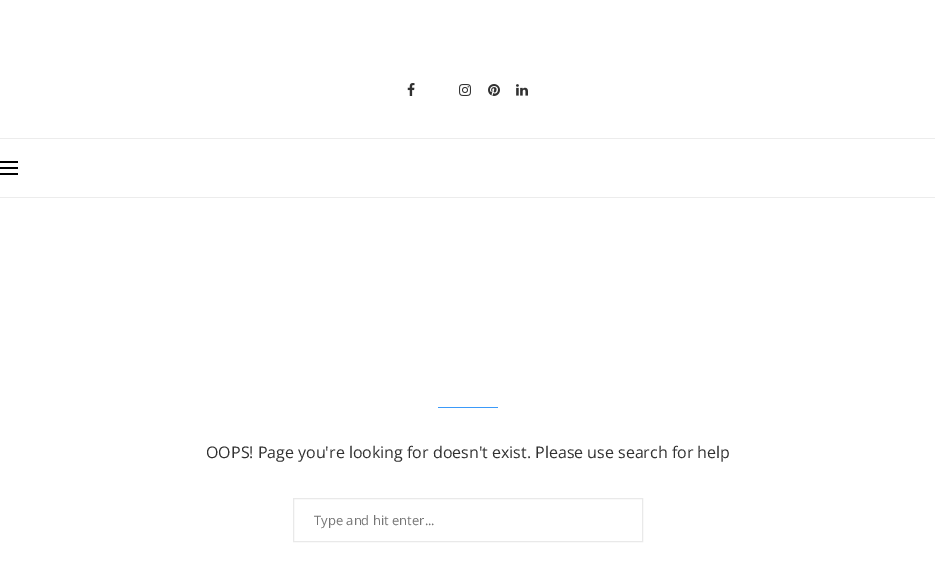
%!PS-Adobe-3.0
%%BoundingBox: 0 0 935 575
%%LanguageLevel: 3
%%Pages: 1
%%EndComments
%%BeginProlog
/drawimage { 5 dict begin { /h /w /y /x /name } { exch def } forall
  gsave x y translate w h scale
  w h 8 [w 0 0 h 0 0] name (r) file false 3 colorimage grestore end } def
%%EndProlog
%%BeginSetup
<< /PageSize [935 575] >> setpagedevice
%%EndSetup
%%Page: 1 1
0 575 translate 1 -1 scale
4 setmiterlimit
1 setgray
0 0 935 575 rectfill
(images/1.raw) 407 83 8 13 drawimage
(images/2.raw) 459 84 12 12 drawimage
(images/3.raw) 488 84 12 12 drawimage
(images/4.raw) 516 84 12 12 drawimage
0.925 setgray
0 138 935 1 rectfill
0 197 935 1 rectfill
0 setgray
0 161 18 2 rectfill
0 167 18 2 rectfill
0 173 18 2 rectfill
0.231 0.604 0.976 setrgbcolor
438 407 60 1 rectfill
0.914 setgray
293.5 498.5 349 43 rectstroke
/OpenSans-Regular [16 0 0 -16 0 0] selectfont
0.192 setgray
206 458 moveto (OOPS! Page you're looking for doesn't exist. Please use search for help) show
/OpenSans-Regular [13 0 0 -13 0 0] selectfont
0.459 setgray
314 525 moveto (Type and hit enter...) show
showpage
%%EOF
